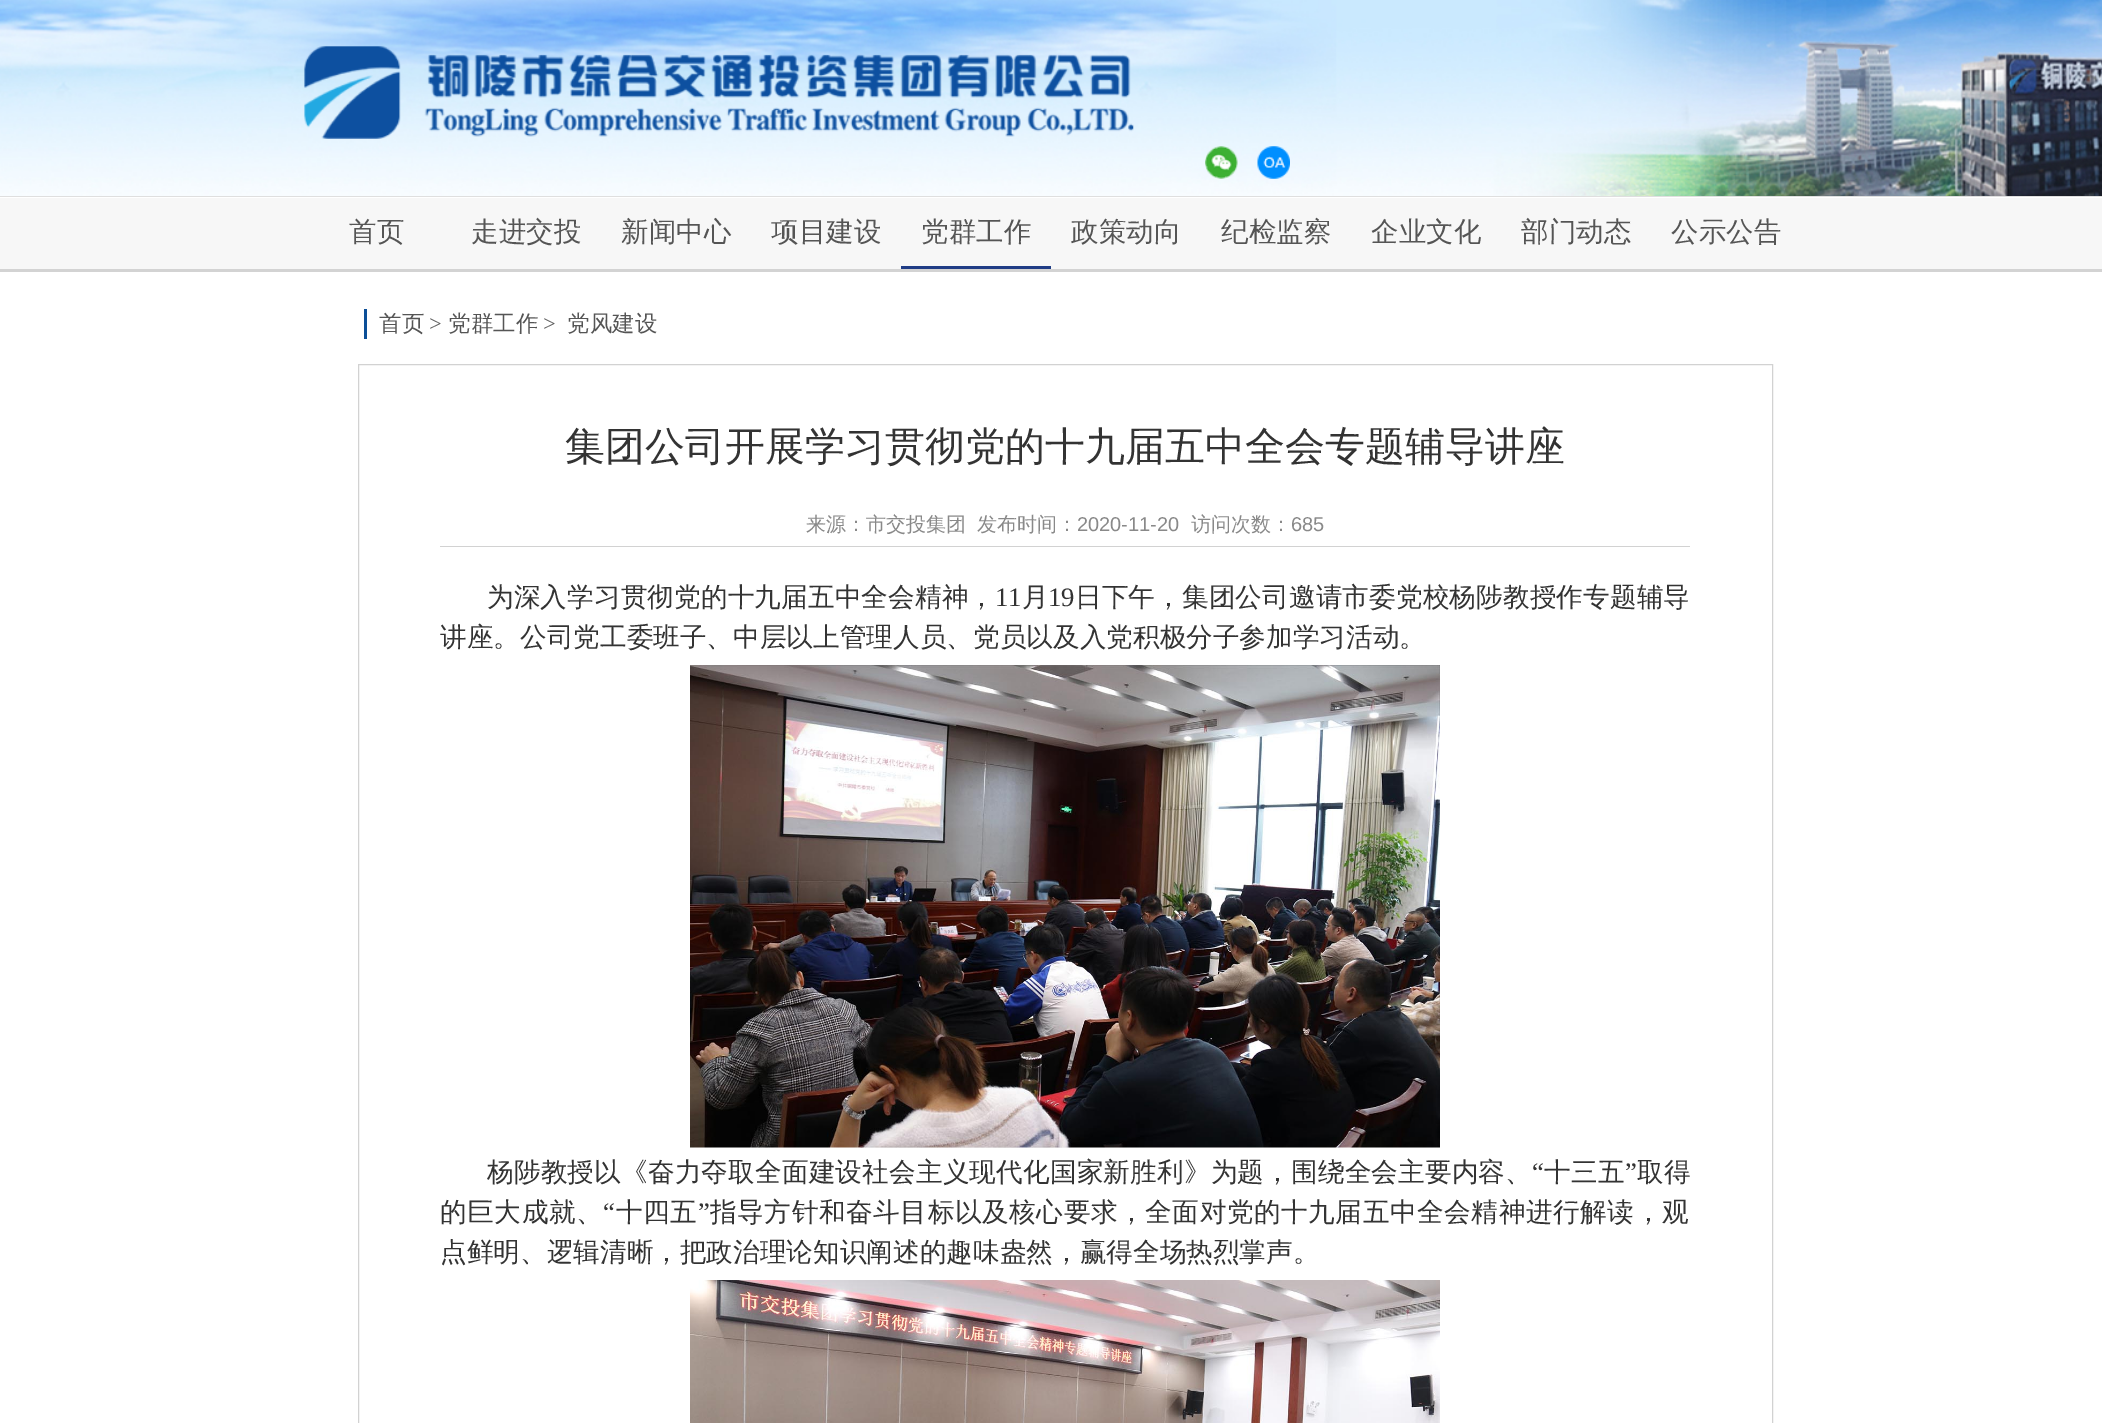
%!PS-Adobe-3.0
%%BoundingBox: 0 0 2102 1423
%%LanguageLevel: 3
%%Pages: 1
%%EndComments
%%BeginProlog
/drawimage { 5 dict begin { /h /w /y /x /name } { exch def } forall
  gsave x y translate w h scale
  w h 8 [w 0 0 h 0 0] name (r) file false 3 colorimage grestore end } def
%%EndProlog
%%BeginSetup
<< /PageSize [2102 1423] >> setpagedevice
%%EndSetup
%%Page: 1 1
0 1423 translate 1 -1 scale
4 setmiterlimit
1 setgray
0 0 2102 1423 rectfill
(images/1.raw) 0 0 2102 196 drawimage
0.875 setgray
0 196 2102 1 rectfill
(images/2.raw) 304 46 830 93 drawimage
(images/3.raw) 1205 146 33 33 drawimage
(images/4.raw) 1257 146 33 33 drawimage
0.969 setgray
0 198 2102 71 rectfill
0.827 setgray
0 269 2102 3 rectfill
0.125 0.239 0.525 setrgbcolor
901 266 150 3 rectfill
0.047 0.31 0.596 setrgbcolor
364 309 3 30 rectfill
0.824 setgray
358.5 364.5 1414 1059 rectstroke
440 546 1250 1 rectfill
(images/5.raw) 690 665 750 483 drawimage
(images/6.raw) 690 1280 750 143 drawimage
/WenQuanYiZenHei-Medium [27.5 0 0 -27.5 0 0] selectfont
0.333 setgray
349 241 moveto (首页) show
471 241 moveto (走进交投) show
621 241 moveto (新闻中心) show
771 241 moveto (项目建设) show
921 241 moveto (党群工作) show
1071 241 moveto (政策动向) show
1221 241 moveto (纪检监察) show
1371 241 moveto (企业文化) show
1521 241 moveto (部门动态) show
1671 241 moveto (公示公告) show
/WenQuanYiZenHei-Medium [22.5 0 0 -22.5 0 0] selectfont
379 331 moveto (首页) show
/LiberationSerif-Regular [22.5 0 0 -22.5 0 0] selectfont
0.369 setgray
429 331 moveto (>) show
/WenQuanYiZenHei-Medium [22.5 0 0 -22.5 0 0] selectfont
0.333 setgray
448 331 moveto (党群工作) show
/LiberationSerif-Regular [22.5 0 0 -22.5 0 0] selectfont
0.369 setgray
543 331 moveto (>) show
/WenQuanYiZenHei-Medium [22.5 0 0 -22.5 0 0] selectfont
0.333 setgray
567 331 moveto (党风建设) show
/WenQuanYiZenHei-Medium [40 0 0 -40 0 0] selectfont
0.2 setgray
565 460 moveto (集团公司开展学习贯彻党的十九届五中全会专题辅导讲座) show
/WenQuanYiZenHei-Medium [20 0 0 -20 0 0] selectfont
0.537 setgray
806 531 moveto (来源：市交投集团) show
977 531 moveto (发布时间：) show
/LiberationSans-Regular [20 0 0 -20 0 0] selectfont
1077 531 moveto (2020-11-20) show
/WenQuanYiZenHei-Medium [20 0 0 -20 0 0] selectfont
1191 531 moveto (访问次数：) show
/LiberationSans-Regular [20 0 0 -20 0 0] selectfont
1291 531 moveto (685) show
/WenQuanYiZenHei-Medium [26.65 0 0 -26.65 0 0] selectfont
0.2 setgray
487 606 moveto 0.1 0 (为深入学习贯彻党的十九届五中全会精神，) ashow
/LiberationSerif-Regular [26.65 0 0 -26.65 0 0] selectfont
995 606 moveto 0.1 0 (11) ashow
/WenQuanYiZenHei-Medium [26.65 0 0 -26.65 0 0] selectfont
1022 606 moveto 0.1 0 (月) ashow
/LiberationSerif-Regular [26.65 0 0 -26.65 0 0] selectfont
1048 606 moveto 0.1 0 (19) ashow
/WenQuanYiZenHei-Medium [26.65 0 0 -26.65 0 0] selectfont
1075 606 moveto 0.1 0 (日下午，集团公司邀请市委党校杨陟教授作专题辅导) ashow
440 646 moveto (讲座。公司党工委班子、中层以上管理人员、党员以及入党积极分子参加学习活动。) show
487 1181 moveto 0.15 0 (杨陟教授以《奋力夺取全面建设社会主义现代化国家新胜利》为题，围绕全会主要内容、) ashow
/LiberationSerif-Regular [26.65 0 0 -26.65 0 0] selectfont
1532 1181 moveto 0.15 0 (“) ashow
/WenQuanYiZenHei-Medium [26.65 0 0 -26.65 0 0] selectfont
1544 1181 moveto 0.15 0 (十三五) ashow
/LiberationSerif-Regular [26.65 0 0 -26.65 0 0] selectfont
1625 1181 moveto 0.15 0 (”) ashow
/WenQuanYiZenHei-Medium [26.65 0 0 -26.65 0 0] selectfont
1637 1181 moveto 0.15 0 (取得) ashow
440 1221 moveto 0.55 0 (的巨大成就、) ashow
/LiberationSerif-Regular [26.65 0 0 -26.65 0 0] selectfont
603 1221 moveto 0.55 0 (“) ashow
/WenQuanYiZenHei-Medium [26.65 0 0 -26.65 0 0] selectfont
616 1221 moveto 0.55 0 (十四五) ashow
/LiberationSerif-Regular [26.65 0 0 -26.65 0 0] selectfont
698 1221 moveto 0.55 0 (”) ashow
/WenQuanYiZenHei-Medium [26.65 0 0 -26.65 0 0] selectfont
710 1221 moveto 0.55 0 (指导方针和奋斗目标以及核心要求，全面对党的十九届五中全会精神进行解读，观) ashow
440 1261 moveto (点鲜明、逻辑清晰，把政治理论知识阐述的趣味盎然，赢得全场热烈掌声。) show
showpage
%%EOF
